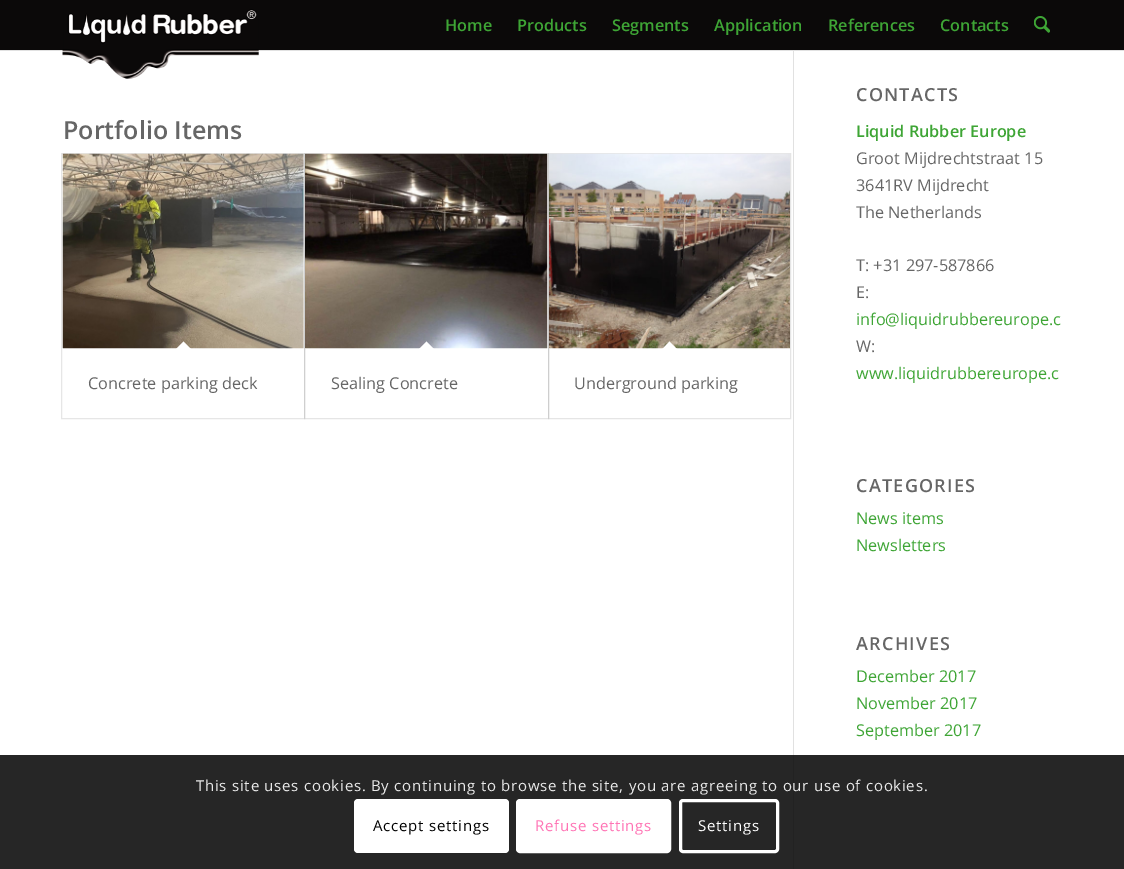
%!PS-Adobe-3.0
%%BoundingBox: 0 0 1124 869
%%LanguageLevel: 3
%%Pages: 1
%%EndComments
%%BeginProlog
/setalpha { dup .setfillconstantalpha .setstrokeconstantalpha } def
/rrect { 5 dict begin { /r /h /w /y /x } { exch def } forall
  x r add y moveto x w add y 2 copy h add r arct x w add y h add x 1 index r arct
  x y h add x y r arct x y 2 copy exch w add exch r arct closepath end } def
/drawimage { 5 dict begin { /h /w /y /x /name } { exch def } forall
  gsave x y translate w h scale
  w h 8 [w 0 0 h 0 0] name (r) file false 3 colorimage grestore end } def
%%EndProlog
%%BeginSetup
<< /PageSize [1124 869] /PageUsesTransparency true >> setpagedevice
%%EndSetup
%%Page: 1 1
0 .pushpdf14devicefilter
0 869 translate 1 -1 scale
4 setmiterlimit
1 setgray
0 0 1124 869 rectfill
0.043 0.035 0.035 setrgbcolor
0 0 1124 50 rectfill
0.882 setgray
0 50 1124 1 rectfill
(images/1.raw) 62 9 197 70 drawimage
(images/2.raw) 1034 16 16 17 drawimage
793 51 1 818 rectfill
0.902 setgray
61.5 153.5 243 265 rectstroke
(images/3.raw) 62 153 242 196 drawimage
1 setgray
newpath 183.5 341.5 moveto 192.5 350.5 lineto 183.5 359 lineto 174.5 350.5 lineto closepath fill
0.1 setalpha
0 setgray
304.5 153.5 244 265 rectstroke
1 setalpha
(images/4.raw) 305 153 243 196 drawimage
1 setgray
newpath 426.5 341.5 moveto 435.5 350.5 lineto 426.5 359 lineto 417.5 350.5 lineto closepath fill
0.1 setalpha
0 setgray
548.5 153.5 242 265 rectstroke
1 setalpha
(images/5.raw) 548 153 242 196 drawimage
1 setgray
newpath 669.5 341.5 moveto 678.5 350.5 lineto 669.5 359 lineto 661 350.5 lineto closepath fill
0.85 setalpha
0 setgray
0 755 1124 114 rectfill
1 setalpha
1 setgray
354 799 155 54 4 rrect fill
517.5 800.5 152 51 2.5 rrect gsave fill grestore
3 setlinewidth
stroke
680.5 800.5 97 51 2.5 rrect stroke
/OpenSans-SemiBold [16.25 0 0 -16.25 0 0] selectfont
0.243 0.647 0.208 setrgbcolor
445 31 moveto (Home) show
517 31 moveto (Products) show
612 31 moveto (Segments) show
714 31 moveto (Application) show
828 31 moveto (References) show
940 31 moveto (Contacts) show
/OpenSans-SemiBold [25 0 0 -25 0 0] selectfont
0.4 setgray
63 139 moveto (Portfolio Items) show
/OpenSans-Regular [16.25 0 0 -16.25 0 0] selectfont
88 389 moveto (Concrete parking deck) show
331 389 moveto (Sealing Concrete) show
574 389 moveto (Underground parking) show
/OpenSans-SemiBold [18 0 0 -18 0 0] selectfont
856 101 moveto 1.25 0 (CONTACTS) ashow
/OpenSans-SemiBold [16.25 0 0 -16.25 0 0] selectfont
0.243 0.647 0.208 setrgbcolor
856 137 moveto (Liquid Rubber Europe) show
/OpenSans-Regular [16.25 0 0 -16.25 0 0] selectfont
0.4 setgray
856 164 moveto (Groot Mijdrechtstraat 15) show
856 191 moveto (3641RV Mijdrecht) show
856 218 moveto (The Netherlands) show
856 271 moveto (T: +31 297-587866) show
856 298 moveto (E:) show
0.243 0.647 0.208 setrgbcolor
856 325 moveto (info@liquidrubbereurope.c) show
0.4 setgray
856 352 moveto (W:) show
0.243 0.647 0.208 setrgbcolor
856 379 moveto (www.liquidrubbereurope.c) show
/OpenSans-SemiBold [18 0 0 -18 0 0] selectfont
0.4 setgray
856 492 moveto 1.25 0 (CATEGORIES) ashow
/OpenSans-Regular [16.25 0 0 -16.25 0 0] selectfont
0.243 0.647 0.208 setrgbcolor
856 524 moveto (News items) show
856 551 moveto (Newsletters) show
/OpenSans-SemiBold [18 0 0 -18 0 0] selectfont
0.4 setgray
856 650 moveto 1.25 0 (ARCHIVES) ashow
/OpenSans-Regular [16.25 0 0 -16.25 0 0] selectfont
0.243 0.647 0.208 setrgbcolor
856 682 moveto (December 2017) show
856 709 moveto (November 2017) show
856 736 moveto (September 2017) show
/OpenSans-Regular [15 0 0 -15 0 0] selectfont
0.914 setgray
196 791 moveto 0.75 0 (This site uses cookies. By continuing to browse the site, you are agreeing to our use of cookies.) ashow
0 setgray
373 831 moveto 0.75 0 (Accept settings) ashow
1 0.459 0.71 setrgbcolor
535 831 moveto 0.75 0 (Refuse settings) ashow
1 setgray
698 831 moveto 0.75 0 (Settings) ashow
.poppdf14devicefilter showpage
%%EOF
